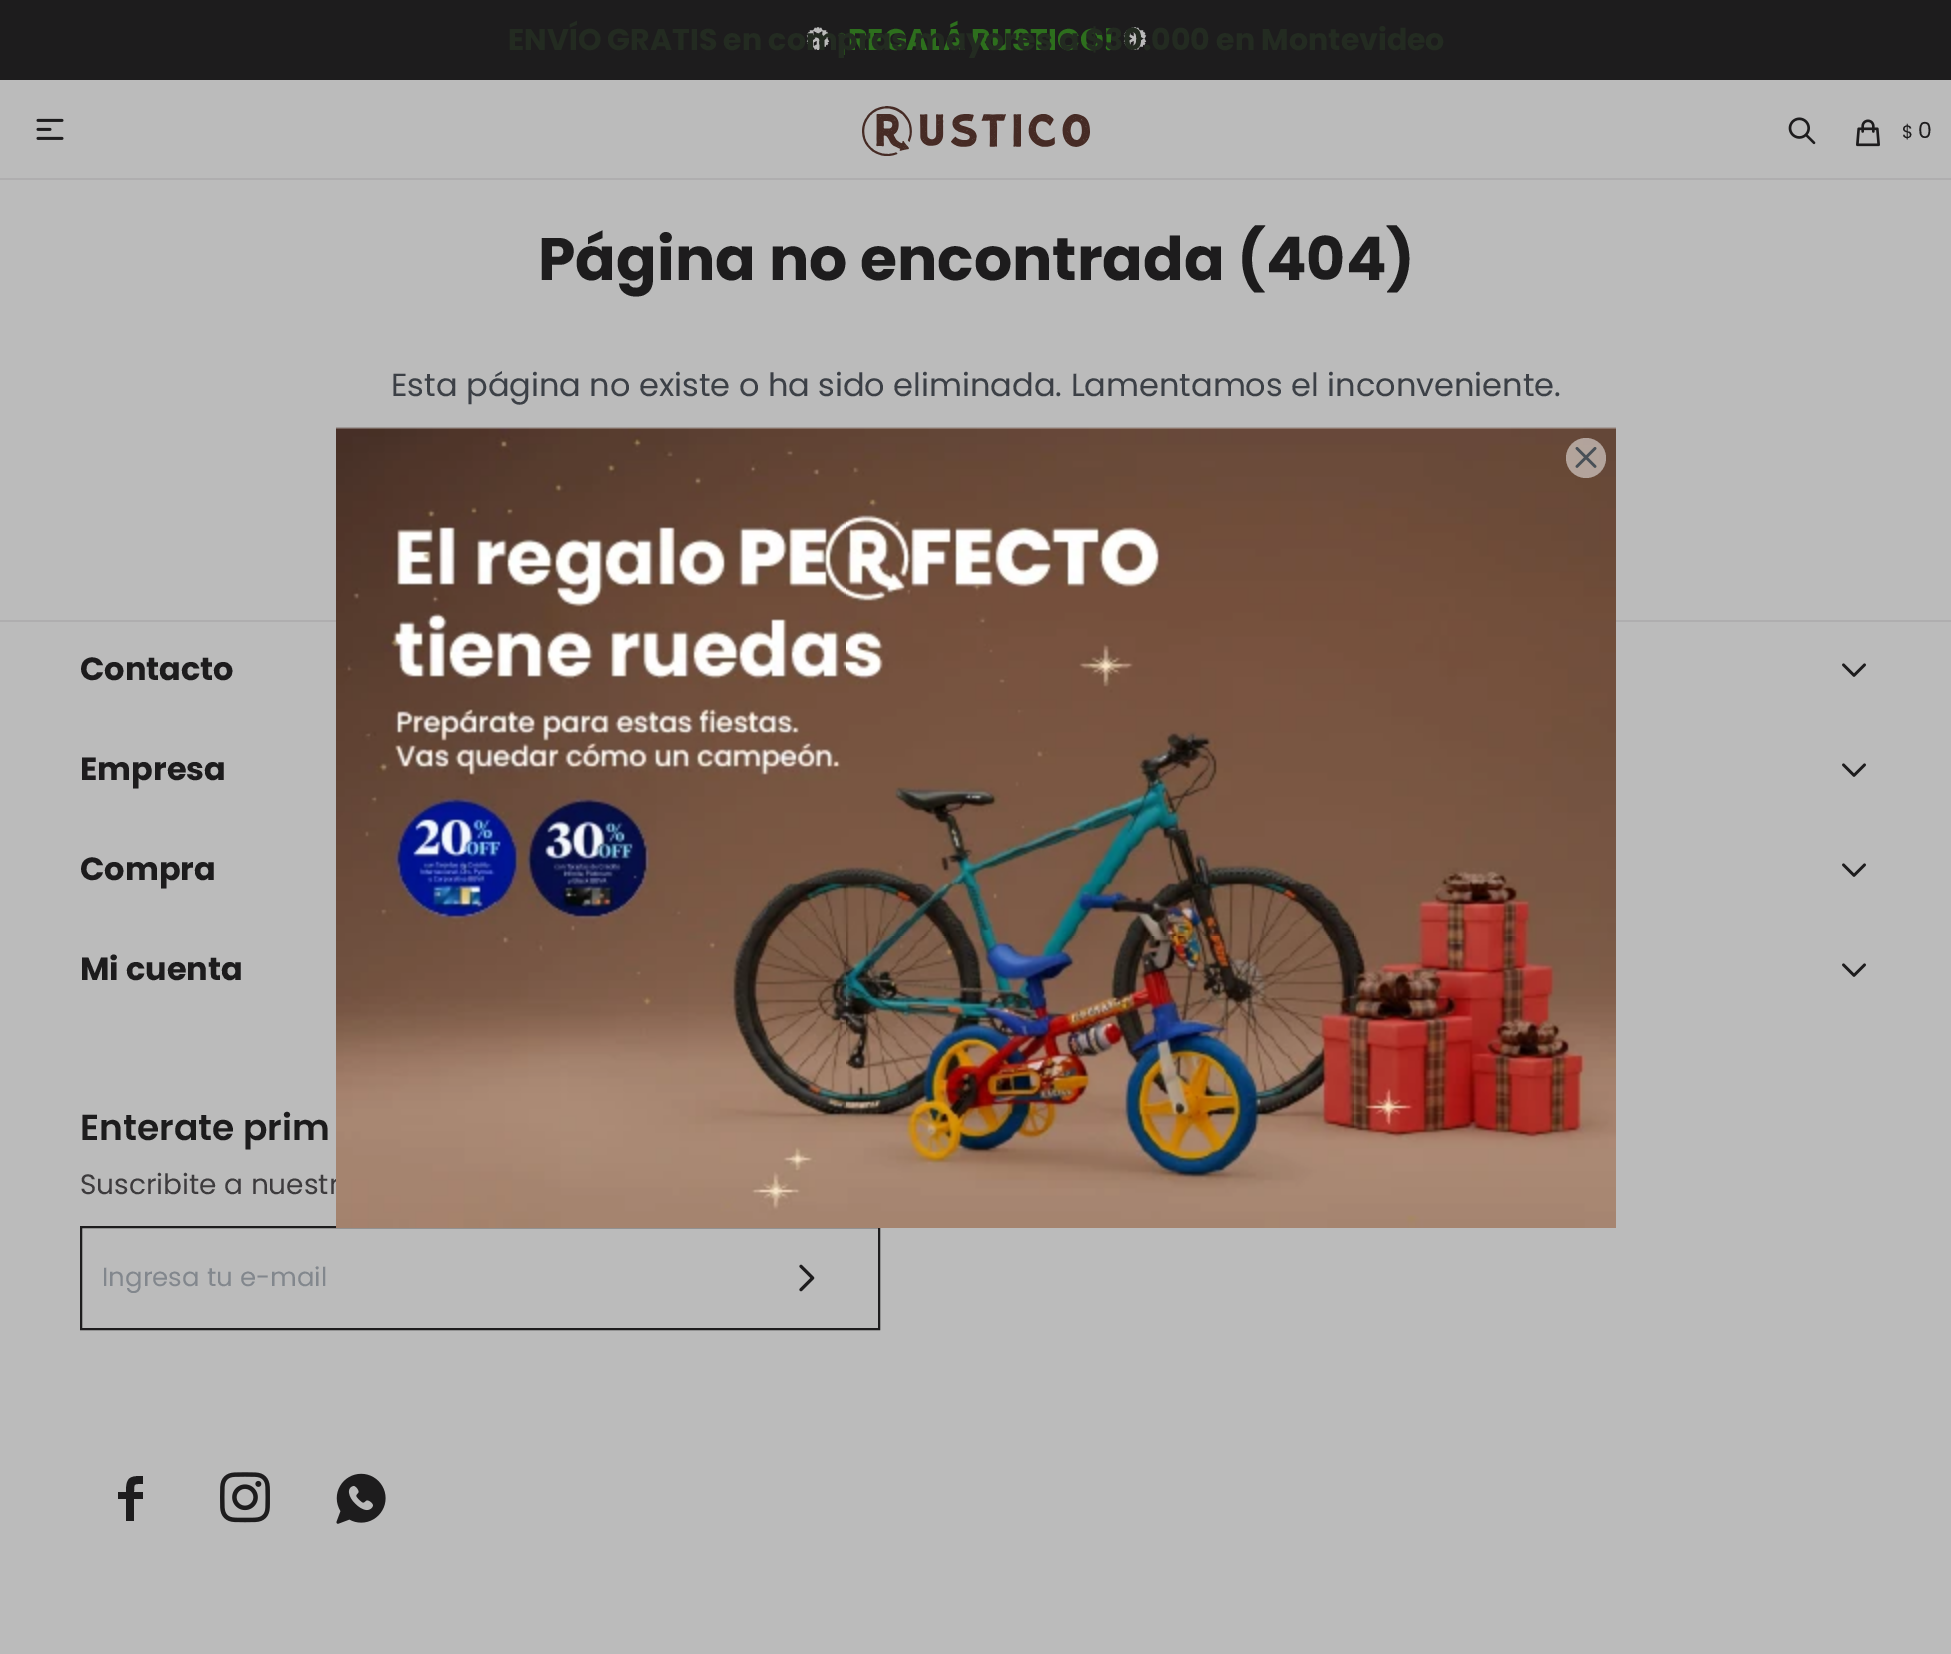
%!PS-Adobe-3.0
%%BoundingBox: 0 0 1951 1654
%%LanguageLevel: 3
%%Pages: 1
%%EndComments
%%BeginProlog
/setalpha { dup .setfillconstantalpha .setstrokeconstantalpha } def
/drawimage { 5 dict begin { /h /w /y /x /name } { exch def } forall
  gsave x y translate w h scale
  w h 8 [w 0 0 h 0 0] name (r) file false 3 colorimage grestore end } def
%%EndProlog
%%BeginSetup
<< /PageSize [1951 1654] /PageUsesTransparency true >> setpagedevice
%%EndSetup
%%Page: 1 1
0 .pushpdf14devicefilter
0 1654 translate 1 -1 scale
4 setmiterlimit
0.733 setgray
0 0 1951 1654 rectfill
0.114 0.11 0.114 setrgbcolor
0 0 1951 80 rectfill
(images/1.raw) 36 118 28 22 drawimage
(images/2.raw) 862 106 228 50 drawimage
(images/3.raw) 1788 117 28 28 drawimage
(images/4.raw) 1856 119 24 28 drawimage
0.686 0.682 0.686 setrgbcolor
0 178 1951 2 rectfill
0 620 1951 2 rectfill
(images/5.raw) 1842 663 24 14 drawimage
(images/5.raw) 1842 763 24 14 drawimage
(images/5.raw) 1842 863 24 14 drawimage
(images/5.raw) 1842 963 24 14 drawimage
0.114 0.11 0.114 setrgbcolor
2 setlinewidth
81 1227 798 102 rectstroke
(images/6.raw) 799 1264 16 28 drawimage
newpath 143 1484 moveto 134 1484 134 1483 134 1492 curveto 143 1492 lineto 143 1499 lineto 134 1499 lineto 134 1521 lineto 126 1521 lineto 126 1499 lineto 118 1499 lineto 118 1492 lineto 126 1492 lineto 126 1477 130 1476 143 1476 curveto closepath fill
(images/7.raw) 220 1472 50 51 drawimage
(images/8.raw) 336 1473 50 51 drawimage
/DejaVuSans-Bold [30 0 0 -30 0 0] selectfont
0.733 setgray
805 50 moveto (❆) show
/Poppins-Bold [30 0 0 -30 0 0] selectfont
0.176 0.435 0.114 setrgbcolor
836 50 moveto (¡REGALÁ RUSTICO!) show
/DejaVuSans-Bold [30 0 0 -30 0 0] selectfont
0.733 setgray
1122 50 moveto (❆) show
/Poppins-Bold [30 0 0 -30 0 0] selectfont
0.137 0.169 0.129 setrgbcolor
508 50 moveto (ENVÍO GRATIS en compras mayores a $30.000 en Montevideo) show
/Poppins-Regular [18 0 0 -18 0 0] selectfont
0.114 0.11 0.114 setrgbcolor
1902 138 moveto ($) show
/Poppins-Regular [22 0 0 -22 0 0] selectfont
1918 138 moveto (0) show
/Poppins-Bold [60 0 0 -60 0 0] selectfont
538 280 moveto (Página no encontrada \(404\)) show
/Poppins-Regular [32 0 0 -32 0 0] selectfont
0.235 0.251 0.275 setrgbcolor
391 396 moveto (Esta página no existe o ha sido eliminada. Lamentamos el inconveniente.) show
/Poppins-Bold [32 0 0 -32 0 0] selectfont
0.114 0.11 0.114 setrgbcolor
80 680 moveto (Contacto) show
80 780 moveto (Empresa) show
80 880 moveto (Compra) show
80 980 moveto (Mi cuenta) show
/Poppins-SemiBold [36 0 0 -36 0 0] selectfont
80 1140 moveto (Enterate prim) show
/Poppins-Regular [28 0 0 -28 0 0] selectfont
0.239 0.231 0.239 setrgbcolor
80 1194 moveto (Suscribite a nuestr) show
/Poppins-Regular [26 0 0 -26 0 0] selectfont
0.51 0.529 0.553 setrgbcolor
102 1286 moveto (Ingresa tu e-mail) show
(images/9.raw) 336 427 1280 801 drawimage
0.5 setalpha
1 setgray
newpath 1586 458 20 0 360 arc closepath fill
1 setalpha
(images/10.raw) 1575 447 22 21 drawimage
.poppdf14devicefilter showpage
%%EOF
